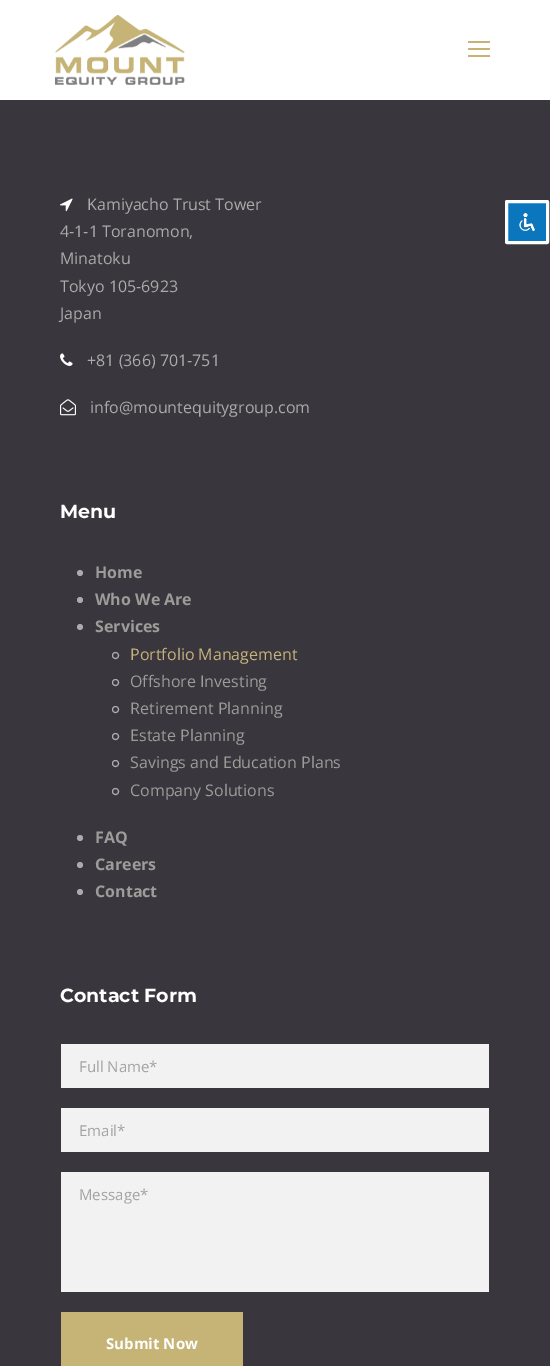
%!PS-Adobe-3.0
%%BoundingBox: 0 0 550 1366
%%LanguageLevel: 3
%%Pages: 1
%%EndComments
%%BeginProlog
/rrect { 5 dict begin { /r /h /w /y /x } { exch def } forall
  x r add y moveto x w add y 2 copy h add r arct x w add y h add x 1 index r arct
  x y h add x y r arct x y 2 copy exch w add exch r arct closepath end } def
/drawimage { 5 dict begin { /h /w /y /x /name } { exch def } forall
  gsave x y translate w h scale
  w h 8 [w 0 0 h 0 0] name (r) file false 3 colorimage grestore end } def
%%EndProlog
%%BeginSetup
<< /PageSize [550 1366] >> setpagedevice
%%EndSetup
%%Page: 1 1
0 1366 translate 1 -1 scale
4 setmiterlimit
0.224 0.212 0.239 setrgbcolor
0 0 550 1366 rectfill
1 setgray
0 0 550 100 rectfill
(images/1.raw) 55 15 130 70 drawimage
0.776 0.706 0.467 setrgbcolor
468 41 22 2 rectfill
468 48 22 2 rectfill
468 55 22 2 rectfill
(images/2.raw) 60 198 13 14 drawimage
(images/3.raw) 60 353 13 13 drawimage
(images/4.raw) 60 399 16 17 drawimage
0.671 setgray
newpath 80 573 3 0 360 arc closepath fill
newpath 80 600 3 0 360 arc closepath fill
newpath 80 627 3 0 360 arc closepath fill
newpath 115.5 655.5 3 0 360 arc closepath stroke
newpath 115.5 682.5 3 0 360 arc closepath stroke
newpath 115.5 709.5 3 0 360 arc closepath stroke
newpath 115.5 736.5 3 0 360 arc closepath stroke
newpath 115.5 763.5 3 0 360 arc closepath stroke
newpath 115.5 791.5 3 0 360 arc closepath stroke
newpath 80 838 3 0 360 arc closepath fill
newpath 80 865 3 0 360 arc closepath fill
newpath 80 892 3 0 360 arc closepath fill
0.949 setgray
61 1044 428 44 rectfill
61 1108 428 44 rectfill
61 1172 428 120 rectfill
0.776 0.706 0.467 setrgbcolor
61 1312 182 54 rectfill
0.039 0.463 0.745 setrgbcolor
506.5 201.5 41 41 0.5 rrect gsave fill grestore
1 setgray
3 setlinewidth
stroke
(images/5.raw) 519 213 16 18 drawimage
/OpenSans-Regular [16 0 0 -16 0 0] selectfont
0.671 setgray
87 210 moveto (Kamiyacho Trust Tower) show
60 237 moveto (4-1-1 Toranomon,) show
60 264 moveto (Minatoku) show
60 292 moveto (Tokyo 105-6923) show
60 319 moveto (Japan) show
87 366 moveto (+81 \(366\) 701-751) show
90 413 moveto (info@mountequitygroup.com) show
/Montserrat-Bold [19 0 0 -19 0 0] selectfont
1 setgray
60 518 moveto (Menu) show
/OpenSans-Bold [16 0 0 -16 0 0] selectfont
0.616 0.612 0.6 setrgbcolor
95 578 moveto (Home) show
95 605 moveto (Who We Are) show
95 632 moveto (Services) show
/OpenSans-Regular [16 0 0 -16 0 0] selectfont
0.776 0.706 0.486 setrgbcolor
130 660 moveto (Portfolio Management) show
0.616 0.612 0.6 setrgbcolor
130 687 moveto (Offshore Investing) show
130 714 moveto (Retirement Planning) show
130 741 moveto (Estate Planning) show
130 768 moveto (Savings and Education Plans) show
130 796 moveto (Company Solutions) show
/OpenSans-Bold [16 0 0 -16 0 0] selectfont
95 843 moveto (FAQ) show
95 870 moveto (Careers) show
95 897 moveto (Contact) show
/Montserrat-Bold [19 0 0 -19 0 0] selectfont
1 setgray
60 1002 moveto (Contact Form) show
/OpenSans-Regular [15 0 0 -15 0 0] selectfont
0.639 setgray
79 1072 moveto (Full Name*) show
79 1136 moveto (Email*) show
79 1200 moveto (Message*) show
/OpenSans-Bold [15 0 0 -15 0 0] selectfont
1 setgray
106 1349 moveto (Submit Now) show
showpage
%%EOF
